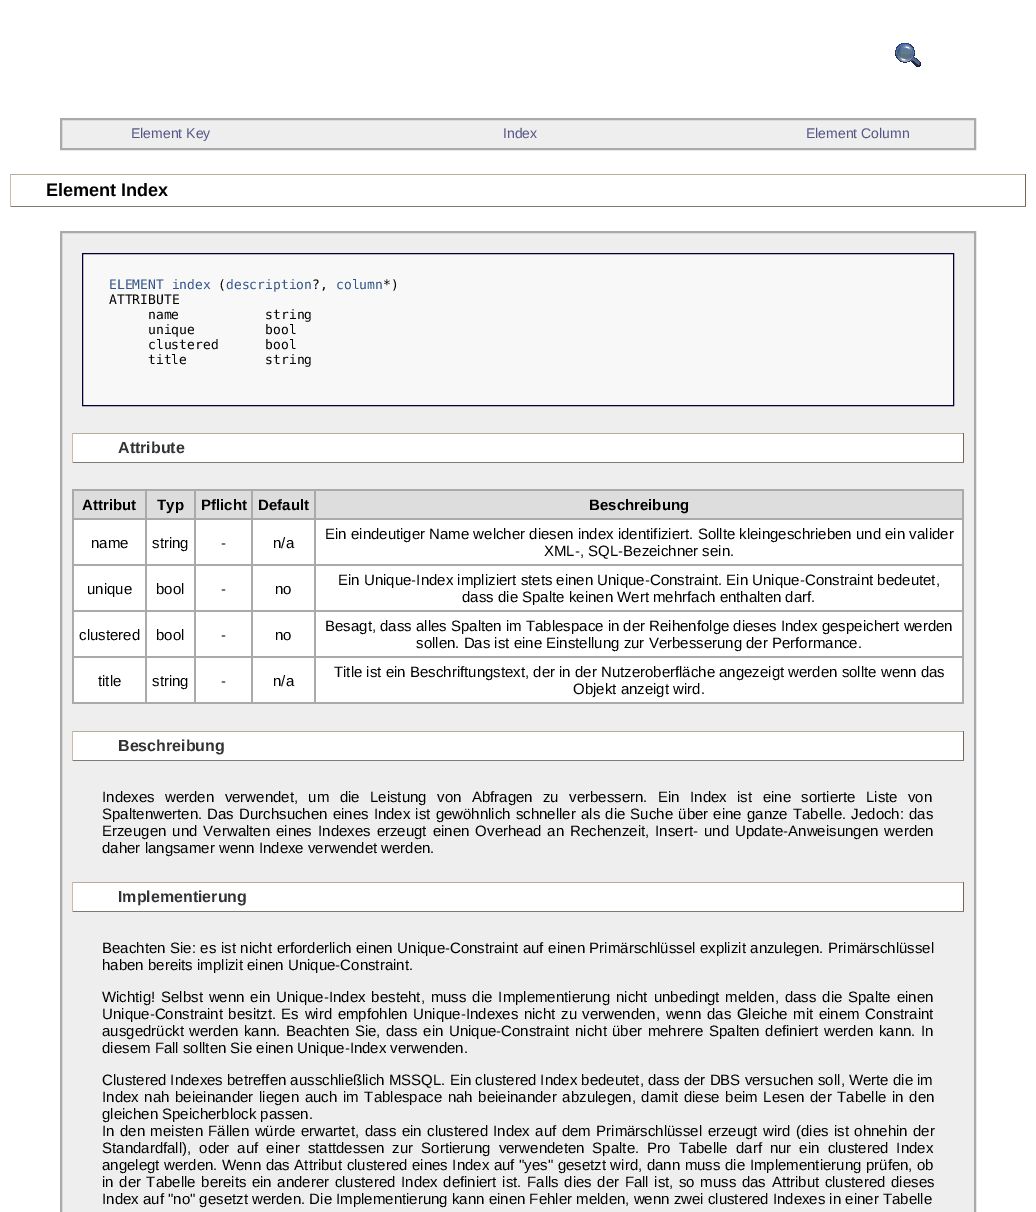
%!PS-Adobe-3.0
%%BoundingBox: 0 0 1036 1212
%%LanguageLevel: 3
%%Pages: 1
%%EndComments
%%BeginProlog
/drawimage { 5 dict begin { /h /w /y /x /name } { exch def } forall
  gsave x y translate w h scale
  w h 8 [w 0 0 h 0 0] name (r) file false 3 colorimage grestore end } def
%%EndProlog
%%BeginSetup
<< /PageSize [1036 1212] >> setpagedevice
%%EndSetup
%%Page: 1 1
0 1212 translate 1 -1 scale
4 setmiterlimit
1 setgray
0 0 1036 1212 rectfill
(images/1.raw) 895 43 26 24 drawimage
0.933 setgray
newpath 61 119 moveto 975 119 lineto 975 149 lineto 61 149 lineto closepath gsave fill grestore
0.667 setgray
2 setlinewidth
stroke
0.718 0.671 0.616 setrgbcolor
10 174 1016 1 rectfill
0.467 0.4 0.333 setrgbcolor
1025 174 1 33 rectfill
0.506 0.478 0.447 setrgbcolor
10 206 1016 1 rectfill
0.8 0.733 0.667 setrgbcolor
10 174 1 33 rectfill
0.933 setgray
newpath 61 232 moveto 975 232 lineto 975 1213 lineto 61 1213 lineto closepath gsave fill grestore
0.667 setgray
stroke
0.973 setgray
newpath 82.5 253.5 moveto 953.5 253.5 lineto 953.5 405.5 lineto 82.5 405.5 lineto closepath gsave fill grestore
0 0 0.2 setrgbcolor
1 setlinewidth
stroke
1 setgray
73 434 890 28 rectfill
0.718 0.671 0.616 setrgbcolor
72 433 892 1 rectfill
0.467 0.4 0.333 setrgbcolor
963 433 1 30 rectfill
0.506 0.478 0.447 setrgbcolor
72 462 892 1 rectfill
0.8 0.733 0.667 setrgbcolor
72 433 1 30 rectfill
0.667 setgray
72 489 892 2 rectfill
962 489 2 215 rectfill
72 702 892 2 rectfill
72 489 2 215 rectfill
0.867 setgray
74 491 71 27 rectfill
147 491 47 27 rectfill
0.667 setgray
314 518 650 2 rectfill
314 564 650 2 rectfill
314 610 650 2 rectfill
314 656 650 2 rectfill
314 656 2 48 rectfill
251 656 65 2 rectfill
314 610 2 48 rectfill
251 610 65 2 rectfill
314 564 2 48 rectfill
251 564 65 2 rectfill
314 518 2 48 rectfill
251 518 65 2 rectfill
251 656 2 48 rectfill
194 656 59 2 rectfill
251 610 2 48 rectfill
194 610 59 2 rectfill
251 564 2 48 rectfill
194 564 59 2 rectfill
251 518 2 48 rectfill
194 518 59 2 rectfill
194 656 2 48 rectfill
145 656 51 2 rectfill
194 610 2 48 rectfill
145 610 51 2 rectfill
194 564 2 48 rectfill
145 564 51 2 rectfill
194 518 2 48 rectfill
145 518 51 2 rectfill
145 656 2 48 rectfill
72 656 75 2 rectfill
145 610 2 48 rectfill
72 610 75 2 rectfill
145 564 2 48 rectfill
72 564 75 2 rectfill
145 518 2 48 rectfill
72 518 75 2 rectfill
145 489 2 31 rectfill
0.867 setgray
196 491 55 27 rectfill
0.667 setgray
194 489 2 31 rectfill
0.867 setgray
253 491 61 27 rectfill
0.667 setgray
251 489 2 31 rectfill
0.867 setgray
316 491 646 27 rectfill
0.667 setgray
314 489 2 31 rectfill
1 setgray
74 520 71 44 rectfill
147 520 47 44 rectfill
196 520 55 44 rectfill
253 520 61 44 rectfill
316 520 646 44 rectfill
74 566 71 44 rectfill
147 566 47 44 rectfill
196 566 55 44 rectfill
253 566 61 44 rectfill
316 566 646 44 rectfill
74 612 71 44 rectfill
147 612 47 44 rectfill
196 612 55 44 rectfill
253 612 61 44 rectfill
316 612 646 44 rectfill
74 658 71 44 rectfill
147 658 47 44 rectfill
196 658 55 44 rectfill
253 658 61 44 rectfill
316 658 646 44 rectfill
73 732 890 28 rectfill
0.718 0.671 0.616 setrgbcolor
72 731 892 1 rectfill
0.467 0.4 0.333 setrgbcolor
963 731 1 30 rectfill
0.506 0.478 0.447 setrgbcolor
72 760 892 1 rectfill
0.8 0.733 0.667 setrgbcolor
72 731 1 30 rectfill
1 setgray
73 883 890 28 rectfill
0.718 0.671 0.616 setrgbcolor
72 882 892 1 rectfill
0.467 0.4 0.333 setrgbcolor
963 882 1 30 rectfill
0.506 0.478 0.447 setrgbcolor
72 911 892 1 rectfill
0.8 0.733 0.667 setrgbcolor
72 882 1 30 rectfill
/LiberationSans-Regular [14 0 0 -14 0 0] selectfont
0.333 0.333 0.533 setrgbcolor
131 138 moveto (Element Key) show
503 138 moveto (Index) show
806 138 moveto (Element Column) show
/LiberationSans-Bold [18 0 0 -18 0 0] selectfont
0 setgray
46 196 moveto (Element Index) show
/DejaVuSansMono-Regular [13 0 0 -13 0 0] selectfont
0.2 0.333 0.533 setrgbcolor
109 289 moveto (ELEMENT index) show
0 setgray
218 289 moveto (\() show
0.2 0.333 0.533 setrgbcolor
226 289 moveto (description) show
0 setgray
312 289 moveto (?,) show
0.2 0.333 0.533 setrgbcolor
336 289 moveto (column) show
0 setgray
383 289 moveto (*\)) show
109 304 moveto (ATTRIBUTE) show
148 319 moveto (name           string) show
148 334 moveto (unique         bool) show
148 349 moveto (clustered      bool) show
148 364 moveto (title          string) show
/LiberationSans-Bold [16 0 0 -16 0 0] selectfont
0.2 setgray
118 453 moveto (Attribute) show
/LiberationSans-Bold [15 0 0 -15 0 0] selectfont
0 setgray
82 510 moveto (Attribut) show
157 510 moveto (Typ) show
201 510 moveto (Pflicht) show
258 510 moveto (Default) show
589 510 moveto (Beschreibung) show
/LiberationSans-Regular [15 0 0 -15 0 0] selectfont
91 548 moveto (name) show
152 548 moveto (string) show
221 548 moveto (-) show
273 548 moveto (n/a) show
325 539 moveto (Ein eindeutiger Name welcher diesen index identifiziert. Sollte kleingeschrieben und ein valider) show
544 556 moveto (XML-, SQL-Bezeichner sein.) show
87 594 moveto (unique) show
156 594 moveto (bool) show
221 594 moveto (-) show
275 594 moveto (no) show
338 585 moveto (Ein Unique-Index impliziert stets einen Unique-Constraint. Ein Unique-Constraint bedeutet,) show
462 602 moveto (dass die Spalte keinen Wert mehrfach enthalten darf.) show
79 640 moveto (clustered) show
156 640 moveto (bool) show
221 640 moveto (-) show
275 640 moveto (no) show
325 631 moveto (Besagt, dass alles Spalten im Tablespace in der Reihenfolge dieses Index gespeichert werden) show
416 648 moveto (sollen. Das ist eine Einstellung zur Verbesserung der Performance.) show
98 686 moveto (title) show
152 686 moveto (string) show
221 686 moveto (-) show
273 686 moveto (n/a) show
334 677 moveto (Title ist ein Beschriftungstext, der in der Nutzeroberfläche angezeigt werden sollte wenn das) show
573 694 moveto (Objekt anzeigt wird.) show
/LiberationSans-Bold [16 0 0 -16 0 0] selectfont
0.2 setgray
118 751 moveto (Beschreibung) show
/LiberationSans-Regular [15 0 0 -15 0 0] selectfont
0 setgray
102 802 moveto 6.25 0 32 (Indexes werden verwendet, um die Leistung von Abfragen zu verbessern. Ein Index ist eine sortierte Liste von) widthshow
102 819 moveto 1 0 32 (Spaltenwerten. Das Durchsuchen eines Index ist gewöhnlich schneller als die Suche über eine ganze Tabelle. Jedoch: das) widthshow
102 836 moveto 1.9 0 32 (Erzeugen und Verwalten eines Indexes erzeugt einen Overhead an Rechenzeit, Insert- und Update-Anweisungen werden) widthshow
102 853 moveto (daher langsamer wenn Indexe verwendet werden.) show
/LiberationSans-Bold [16 0 0 -16 0 0] selectfont
0.2 setgray
118 902 moveto (Implementierung) show
/LiberationSans-Regular [15 0 0 -15 0 0] selectfont
0 setgray
102 953 moveto 0.4 0 32 (Beachten Sie: es ist nicht erforderlich einen Unique-Constraint auf einen Primärschlüssel explizit anzulegen. Primärschlüssel) widthshow
102 970 moveto (haben bereits implizit einen Unique-Constraint.) show
102 1002 moveto (Wichtig!) show
161 1002 moveto 1.75 0 32 (Selbst wenn ein Unique-Index besteht, muss die Implementierung nicht unbedingt melden, dass die Spalte einen) widthshow
102 1019 moveto 1.4 0 32 (Unique-Constraint besitzt. Es wird empfohlen Unique-Indexes nicht zu verwenden, wenn das Gleiche mit einem Constraint) widthshow
102 1036 moveto 1.3 0 32 (ausgedrückt werden kann. Beachten Sie, dass ein Unique-Constraint nicht über mehrere Spalten definiert werden kann. In) widthshow
102 1053 moveto (diesem Fall sollten Sie einen Unique-Index verwenden.) show
102 1085 moveto (Clustered Indexes betreffen ausschließlich MSSQL. Ein clustered Index bedeutet, dass der DBS versuchen soll, Werte die im) show
102 1102 moveto 1.5 0 32 (Index nah beieinander liegen auch im Tablespace nah beieinander abzulegen, damit diese beim Lesen der Tabelle in den) widthshow
102 1119 moveto (gleichen Speicherblock passen.) show
102 1136 moveto 1.25 0 32 (In den meisten Fällen würde erwartet, dass ein clustered Index auf dem Primärschlüssel erzeugt wird \(dies ist ohnehin der) widthshow
102 1153 moveto 3.9 0 32 (Standardfall\), oder auf einer stattdessen zur Sortierung verwendeten Spalte. Pro Tabelle darf nur ein clustered Index) widthshow
102 1170 moveto 0.4 0 32 (angelegt werden.) widthshow
222 1170 moveto 0.4 0 32 (Wenn das Attribut clustered eines Index auf "yes" gesetzt wird, dann muss die Implementierung prüfen, ob) widthshow
102 1187 moveto 1.4 0 32 (in der Tabelle bereits ein anderer clustered Index definiert ist.) widthshow
527 1187 moveto 1.4 0 32 (Falls dies der Fall ist, so muss das Attribut clustered dieses) widthshow
102 1204 moveto (Index auf "no" gesetzt werden. Die Implementierung kann einen Fehler melden, wenn zwei clustered Indexes in einer Tabelle) show
showpage
%%EOF
